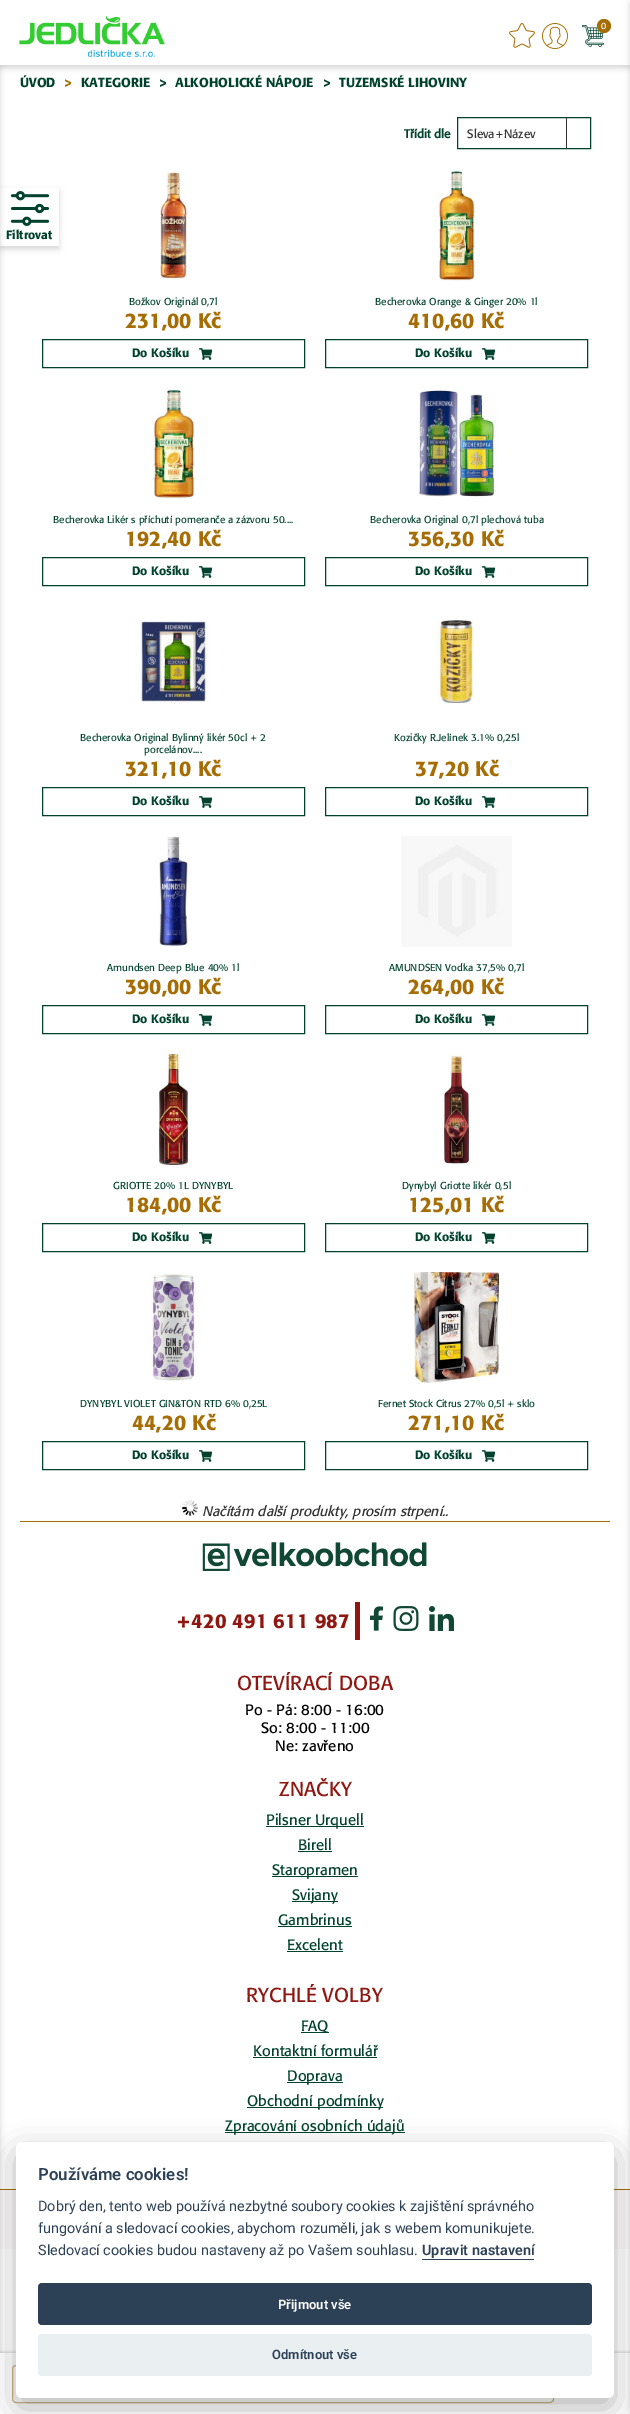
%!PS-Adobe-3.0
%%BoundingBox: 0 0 630 2414
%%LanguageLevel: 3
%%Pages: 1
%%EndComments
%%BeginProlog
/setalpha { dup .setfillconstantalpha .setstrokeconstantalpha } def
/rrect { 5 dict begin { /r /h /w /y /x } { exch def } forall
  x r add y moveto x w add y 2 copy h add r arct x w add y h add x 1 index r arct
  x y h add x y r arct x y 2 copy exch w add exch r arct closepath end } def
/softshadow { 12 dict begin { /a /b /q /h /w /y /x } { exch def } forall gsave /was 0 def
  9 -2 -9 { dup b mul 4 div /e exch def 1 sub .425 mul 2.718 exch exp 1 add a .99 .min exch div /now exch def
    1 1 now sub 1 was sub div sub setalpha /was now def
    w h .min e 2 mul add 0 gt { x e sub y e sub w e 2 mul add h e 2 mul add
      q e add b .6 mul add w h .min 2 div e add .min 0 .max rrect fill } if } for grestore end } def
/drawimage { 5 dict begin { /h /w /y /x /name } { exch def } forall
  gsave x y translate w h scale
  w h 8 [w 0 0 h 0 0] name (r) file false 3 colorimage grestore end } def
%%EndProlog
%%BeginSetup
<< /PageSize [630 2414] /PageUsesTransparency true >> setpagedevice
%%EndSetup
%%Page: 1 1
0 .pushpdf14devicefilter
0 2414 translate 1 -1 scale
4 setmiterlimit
1 setgray
0 0 630 2414 rectfill
0 setgray
0 3 630 65 0 3 0.16 softshadow
0.984 0.976 0.976 setrgbcolor
0 2190 630 59 rectfill
0.651 0.427 0.02 setrgbcolor
0 2189 630 1 rectfill
0 setgray
-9 3 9 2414 0 3 0.16 softshadow
1 setgray
0 0 630 65 rectfill
(images/1.raw) 19 16 146 41 drawimage
0 setgray
630 3 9 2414 0 3 0.16 softshadow
(images/2.raw) 509 23 26 25 drawimage
(images/3.raw) 542 23 26 26 drawimage
(images/4.raw) 582 25 22 22 drawimage
0.651 0.427 0.02 setrgbcolor
newpath 604 26 7 0 360 arc closepath fill
gsave
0 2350 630 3 rectclip
0 setgray
0 2352 630 61 0 1.5 0.16 softshadow
grestore
0.9 setalpha
1 setgray
0 2353 4 61 rectfill
1 setalpha
0.827 0.714 0.51 setrgbcolor
12.5 2365.5 541 37 3.5 rrect stroke
gsave
newpath 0 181 moveto 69 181 lineto 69 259 lineto 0 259 lineto closepath 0 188 moveto 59 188 lineto 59 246 lineto 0 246 lineto closepath eoclip newpath
0 setgray
0 191 59 58 0 3 0.16 softshadow
grestore
(images/5.raw) 10 191 40 35 drawimage
0 0.259 0.18 setrgbcolor
457.5 117.5 133 31 rectstroke
0.2 setgray
566 117 1 32 rectfill
(images/6.raw) 160 170 30 110 drawimage
0 0.259 0.18 setrgbcolor
42.5 339.5 262 28 rectstroke
(images/7.raw) 199 348 13 12 drawimage
(images/8.raw) 438 170 37 111 drawimage
325.5 339.5 262 28 rectstroke
(images/7.raw) 482 348 13 12 drawimage
(images/9.raw) 153 388 42 111 drawimage
42.5 557.5 262 28 rectstroke
(images/7.raw) 199 566 13 12 drawimage
(images/10.raw) 419 388 78 109 drawimage
325.5 557.5 262 28 rectstroke
(images/7.raw) 482 566 13 12 drawimage
(images/11.raw) 138 621 72 81 drawimage
42.5 787.5 262 28 rectstroke
(images/7.raw) 199 796 13 12 drawimage
(images/12.raw) 437 620 37 83 drawimage
325.5 787.5 262 28 rectstroke
(images/7.raw) 482 796 13 12 drawimage
(images/13.raw) 159 836 29 111 drawimage
42.5 1005.5 262 28 rectstroke
(images/7.raw) 199 1014 13 12 drawimage
(images/14.raw) 401 836 111 111 drawimage
325.5 1005.5 262 28 rectstroke
(images/7.raw) 482 1014 13 12 drawimage
(images/15.raw) 159 1054 29 111 drawimage
42.5 1223.5 262 28 rectstroke
(images/7.raw) 199 1232 13 12 drawimage
(images/16.raw) 442 1054 29 111 drawimage
325.5 1223.5 262 28 rectstroke
(images/7.raw) 482 1232 13 12 drawimage
(images/17.raw) 148 1272 48 109 drawimage
42.5 1441.5 262 28 rectstroke
(images/7.raw) 199 1450 13 12 drawimage
(images/18.raw) 414 1272 85 111 drawimage
325.5 1441.5 262 28 rectstroke
(images/7.raw) 482 1450 13 12 drawimage
(images/19.raw) 182 1500 16 16 drawimage
0.651 0.427 0.02 setrgbcolor
20 1521 590 1 rectfill
(images/20.raw) 202 1542 225 29 drawimage
0.561 0.09 0.067 setrgbcolor
355 1602 5 38 rectfill
(images/21.raw) 370 1606 13 25 drawimage
(images/22.raw) 393 1606 26 25 drawimage
(images/23.raw) 429 1606 25 25 drawimage
0 0.259 0.18 setrgbcolor
266 1826 98 1 rectfill
298 1851 34 1 rectfill
272 1876 86 1 rectfill
292 1901 46 1 rectfill
278 1926 74 1 rectfill
287 1951 56 1 rectfill
301 2032 28 1 rectfill
253 2057 124 1 rectfill
287 2082 56 1 rectfill
247 2107 136 1 rectfill
225 2132 180 1 rectfill
0.008 0.008 0.012 setrgbcolor
16 2152 598 256 6 15 0.28 softshadow
1 setgray
16 2142 598 256 6 rrect fill
0.176 0.255 0.337 setrgbcolor
422 2259 112 1 rectfill
38 2283 554 42 4 rrect fill
0.918 0.937 0.949 setrgbcolor
38 2334 554 42 4 rrect fill
/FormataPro-Regular [9 0 0 -9 0 0] selectfont
1 setgray
601 29 moveto (0) show
/FormataPro-Medium [13 0 0 -13 0 0] selectfont
0 0.259 0.18 setrgbcolor
20 87 moveto (ÚVOD) show
0.651 0.427 0.02 setrgbcolor
63 87 moveto (>) show
0 0.259 0.18 setrgbcolor
81 87 moveto (KATEGORIE) show
158 87 moveto (>) show
175 87 moveto (ALKOHOLICKÉ NÁPOJE) show
322 87 moveto (>) show
339 87 moveto (TUZEMSKÉ LIHOVINY) show
/FormataPro-Medium [12 0 0 -12 0 0] selectfont
6 239 moveto (Filtrovat) show
/FormataPro-Bold [12 0 0 -12 0 0] selectfont
404 138 moveto (Třídit dle) show
/FormataPro-Regular [12 0 0 -12 0 0] selectfont
0.2 setgray
467 138 moveto (Sleva+Název) show
/FormataPro-Regular [10 0 0 -10 0 0] selectfont
0 0.259 0.18 setrgbcolor
129 305 moveto (Božkov Originál 0,7l) show
/FormataPro-Medium [21 0 0 -21 0 0] selectfont
0.651 0.427 0.02 setrgbcolor
125 328 moveto (231,00 Kč) show
/FormataPro-Medium [12 0 0 -12 0 0] selectfont
0 0.259 0.18 setrgbcolor
132 357 moveto (Do Košíku) show
/FormataPro-Regular [10 0 0 -10 0 0] selectfont
375 305 moveto (Becherovka Orange & Ginger 20% 1l) show
/FormataPro-Medium [21 0 0 -21 0 0] selectfont
0.651 0.427 0.02 setrgbcolor
408 328 moveto (410,60 Kč) show
/FormataPro-Medium [12 0 0 -12 0 0] selectfont
0 0.259 0.18 setrgbcolor
415 357 moveto (Do Košíku) show
/FormataPro-Regular [10 0 0 -10 0 0] selectfont
53 523 moveto (Becherovka Likér s příchutí pomeranče a zázvoru 50....) show
/FormataPro-Medium [21 0 0 -21 0 0] selectfont
0.651 0.427 0.02 setrgbcolor
125 546 moveto (192,40 Kč) show
/FormataPro-Medium [12 0 0 -12 0 0] selectfont
0 0.259 0.18 setrgbcolor
132 575 moveto (Do Košíku) show
/FormataPro-Regular [10 0 0 -10 0 0] selectfont
370 523 moveto (Becherovka Original 0,7l plechová tuba) show
/FormataPro-Medium [21 0 0 -21 0 0] selectfont
0.651 0.427 0.02 setrgbcolor
408 546 moveto (356,30 Kč) show
/FormataPro-Medium [12 0 0 -12 0 0] selectfont
0 0.259 0.18 setrgbcolor
415 575 moveto (Do Košíku) show
/FormataPro-Regular [10 0 0 -10 0 0] selectfont
80 741 moveto (Becherovka Original Bylinný likér 50cl + 2) show
144 753 moveto (porcelánov....) show
/FormataPro-Medium [21 0 0 -21 0 0] selectfont
0.651 0.427 0.02 setrgbcolor
125 776 moveto (321,10 Kč) show
/FormataPro-Medium [12 0 0 -12 0 0] selectfont
0 0.259 0.18 setrgbcolor
132 805 moveto (Do Košíku) show
/FormataPro-Regular [10 0 0 -10 0 0] selectfont
394 741 moveto (Kozičky R.Jelínek 3.1% 0,25l) show
/FormataPro-Medium [21 0 0 -21 0 0] selectfont
0.651 0.427 0.02 setrgbcolor
415 776 moveto (37,20 Kč) show
/FormataPro-Medium [12 0 0 -12 0 0] selectfont
0 0.259 0.18 setrgbcolor
415 805 moveto (Do Košíku) show
/FormataPro-Regular [10 0 0 -10 0 0] selectfont
107 971 moveto (Amundsen Deep Blue 40% 1l) show
/FormataPro-Medium [21 0 0 -21 0 0] selectfont
0.651 0.427 0.02 setrgbcolor
125 994 moveto (390,00 Kč) show
/FormataPro-Medium [12 0 0 -12 0 0] selectfont
0 0.259 0.18 setrgbcolor
132 1023 moveto (Do Košíku) show
/FormataPro-Regular [10 0 0 -10 0 0] selectfont
389 971 moveto (AMUNDSEN Vodka 37,5% 0,7l) show
/FormataPro-Medium [21 0 0 -21 0 0] selectfont
0.651 0.427 0.02 setrgbcolor
408 994 moveto (264,00 Kč) show
/FormataPro-Medium [12 0 0 -12 0 0] selectfont
0 0.259 0.18 setrgbcolor
415 1023 moveto (Do Košíku) show
/FormataPro-Regular [10 0 0 -10 0 0] selectfont
113 1189 moveto (GRIOTTE 20% 1L DYNYBYL) show
/FormataPro-Medium [21 0 0 -21 0 0] selectfont
0.651 0.427 0.02 setrgbcolor
125 1212 moveto (184,00 Kč) show
/FormataPro-Medium [12 0 0 -12 0 0] selectfont
0 0.259 0.18 setrgbcolor
132 1241 moveto (Do Košíku) show
/FormataPro-Regular [10 0 0 -10 0 0] selectfont
402 1189 moveto (Dynybyl Griotte likér 0,5l) show
/FormataPro-Medium [21 0 0 -21 0 0] selectfont
0.651 0.427 0.02 setrgbcolor
408 1212 moveto (125,01 Kč) show
/FormataPro-Medium [12 0 0 -12 0 0] selectfont
0 0.259 0.18 setrgbcolor
415 1241 moveto (Do Košíku) show
/FormataPro-Regular [10 0 0 -10 0 0] selectfont
80 1407 moveto (DYNYBYL VIOLET GIN&TON RTD 6% 0,25L) show
/FormataPro-Medium [21 0 0 -21 0 0] selectfont
0.651 0.427 0.02 setrgbcolor
132 1430 moveto (44,20 Kč) show
/FormataPro-Medium [12 0 0 -12 0 0] selectfont
0 0.259 0.18 setrgbcolor
132 1459 moveto (Do Košíku) show
/FormataPro-Regular [10 0 0 -10 0 0] selectfont
378 1407 moveto (Fernet Stock Citrus 27% 0,5l + sklo) show
/FormataPro-Medium [21 0 0 -21 0 0] selectfont
0.651 0.427 0.02 setrgbcolor
408 1430 moveto (271,10 Kč) show
/FormataPro-Medium [12 0 0 -12 0 0] selectfont
0 0.259 0.18 setrgbcolor
415 1459 moveto (Do Košíku) show
/FormataPro-Italic [14 0 0 -14 0 0] selectfont
0.2 setgray
202 1516 moveto (Načítám další produkty, prosím strpení..) show
/FormataPro-Medium [20 0 0 -20 0 0] selectfont
0.561 0.09 0.067 setrgbcolor
176 1628 moveto 0.1 0 (+420 491 611 987) ashow
/FormataPro-Regular [20 0 0 -20 0 0] selectfont
237 1690 moveto 0.1 0 (OTEVÍRACÍ DOBA) ashow
/FormataPro-Regular [15 0 0 -15 0 0] selectfont
0 setgray
245 1715 moveto (Po - Pá: 8:00 - 16:00) show
261 1733 moveto (So: 8:00 - 11:00) show
275 1751 moveto (Ne: zavřeno) show
/FormataPro-Regular [20 0 0 -20 0 0] selectfont
0.561 0.09 0.067 setrgbcolor
279 1796 moveto 0.1 0 (ZNAČKY) ashow
/FormataPro-Regular [15 0 0 -15 0 0] selectfont
0 0.259 0.18 setrgbcolor
266 1825 moveto (Pilsner Urquell) show
298 1850 moveto (Birell) show
272 1875 moveto (Staropramen) show
292 1900 moveto (Svijany) show
278 1925 moveto (Gambrinus) show
287 1950 moveto (Excelent) show
/FormataPro-Regular [20 0 0 -20 0 0] selectfont
0.561 0.09 0.067 setrgbcolor
246 2002 moveto 0.1 0 (RYCHLÉ VOLBY) ashow
/FormataPro-Regular [15 0 0 -15 0 0] selectfont
0 0.259 0.18 setrgbcolor
301 2031 moveto (FAQ) show
253 2056 moveto (Kontaktní formulář) show
287 2081 moveto (Doprava) show
247 2106 moveto (Obchodní podmínky) show
225 2131 moveto (Zpracování osobních údajů) show
/Roboto-SemiBold [16.75 0 0 -16.75 0 0] selectfont
0.176 0.255 0.337 setrgbcolor
38 2180 moveto (Používáme cookies!) show
/Roboto-Regular [14.4 0 0 -14.4 0 0] selectfont
38 2211 moveto (Dobrý den, tento web používá nezbytné soubory cookies k zajištění správného) show
38 2233 moveto (fungování a sledovací cookies, abychom rozuměli, jak s webem komunikujete.) show
38 2255 moveto (Sledovací cookies budou nastaveny až po Vašem souhlasu.) show
/Roboto-SemiBold [14.4 0 0 -14.4 0 0] selectfont
422 2255 moveto (Upravit nastavení) show
/Roboto-SemiBold [13 0 0 -13 0 0] selectfont
1 setgray
278 2309 moveto (Přijmout vše) show
0.176 0.255 0.337 setrgbcolor
272 2359 moveto (Odmítnout vše) show
.poppdf14devicefilter showpage
%%EOF
